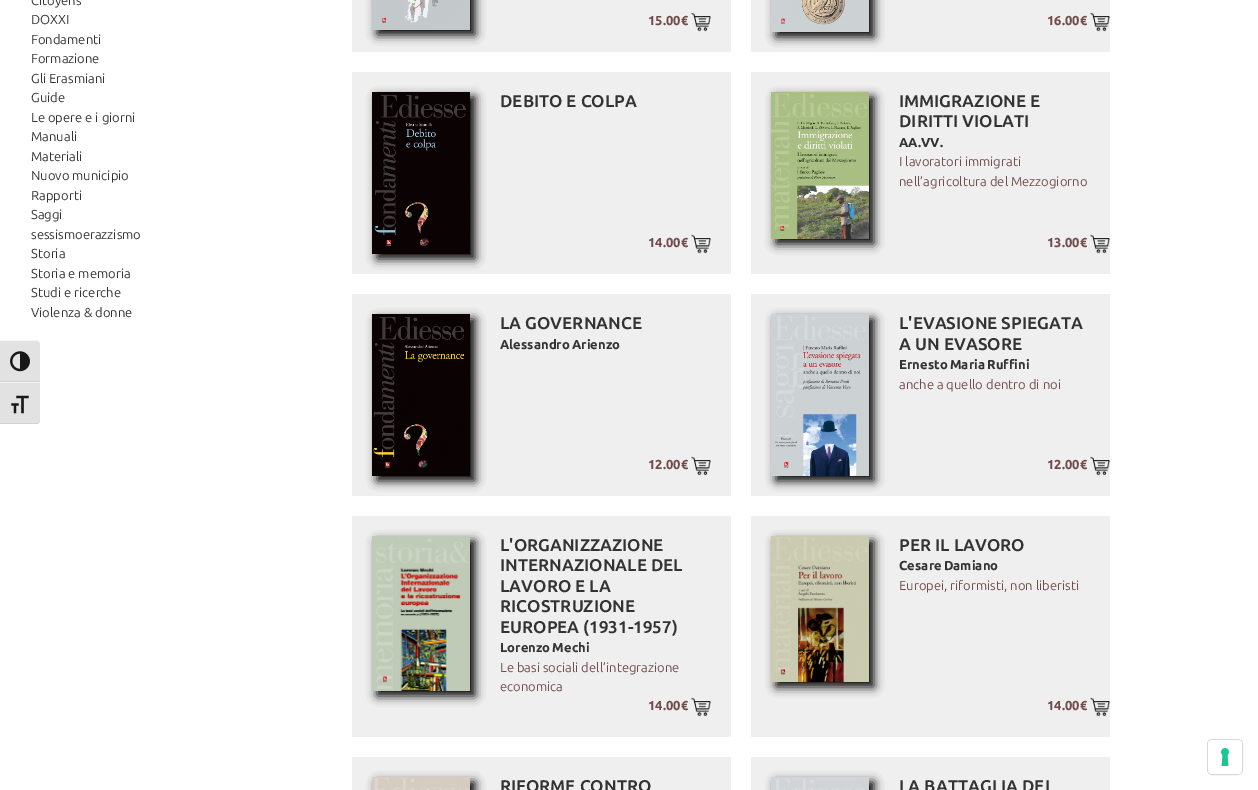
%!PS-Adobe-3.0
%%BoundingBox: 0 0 1258 790
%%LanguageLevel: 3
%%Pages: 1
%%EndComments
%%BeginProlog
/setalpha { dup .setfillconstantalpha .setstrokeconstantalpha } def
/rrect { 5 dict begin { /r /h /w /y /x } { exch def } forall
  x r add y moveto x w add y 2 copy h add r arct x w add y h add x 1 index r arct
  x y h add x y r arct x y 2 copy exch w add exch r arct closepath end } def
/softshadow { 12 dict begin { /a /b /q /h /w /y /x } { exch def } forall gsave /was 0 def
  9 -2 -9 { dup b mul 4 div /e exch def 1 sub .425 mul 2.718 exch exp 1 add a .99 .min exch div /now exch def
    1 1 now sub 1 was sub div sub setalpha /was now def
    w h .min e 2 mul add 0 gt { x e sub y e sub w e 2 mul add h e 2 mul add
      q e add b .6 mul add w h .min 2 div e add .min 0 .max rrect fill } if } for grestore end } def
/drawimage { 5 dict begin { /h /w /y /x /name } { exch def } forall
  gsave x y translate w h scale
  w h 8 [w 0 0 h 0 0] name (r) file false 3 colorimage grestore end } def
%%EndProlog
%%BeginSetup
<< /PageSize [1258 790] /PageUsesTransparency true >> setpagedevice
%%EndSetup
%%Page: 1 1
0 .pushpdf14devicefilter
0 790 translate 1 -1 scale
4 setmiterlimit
1 setgray
0 0 1258 790 rectfill
0.886 setgray
newpath 0 340 moveto 36 340 lineto 38 340 40 342 40 344 curveto 40 382 lineto 0 382 lineto closepath fill
0.961 setgray
newpath 0 340 moveto 0 341 lineto 36 341 lineto 38 341 40 342 40 344 curveto 40 342 38 340 36 340 curveto closepath fill
0.824 setgray
0 381 40 1 rectfill
(images/1.raw) 10 351 20 21 drawimage
0.886 setgray
newpath 0 382 moveto 40 382 lineto 40 420 lineto 40 422 38 424 36 424 curveto 0 424 lineto closepath fill
0.961 setgray
0 382 40 1 rectfill
0.824 setgray
newpath 0 423 moveto 0 424 lineto 36 424 lineto 38 424 40 422 40 420 curveto 40 422 38 423 36 423 curveto closepath fill
(images/2.raw) 11 395 18 19 drawimage
0.937 setgray
352 0 379 52 rectfill
0 setgray
377 -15 98 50 0 5 1 softshadow
(images/3.raw) 372 0 98 30 drawimage
(images/4.raw) 691 12 20 20 drawimage
0.937 setgray
751 0 359 52 rectfill
0 setgray
776 -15 98 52 0 5 1 softshadow
(images/5.raw) 771 0 98 32 drawimage
(images/4.raw) 1090 12 20 20 drawimage
0.937 setgray
352 72 379 202 rectfill
0 setgray
377 97 98 162 0 5 1 softshadow
(images/6.raw) 372 92 98 162 drawimage
(images/4.raw) 691 234 20 20 drawimage
0.937 setgray
751 72 359 202 rectfill
0 setgray
776 97 98 147 0 5 1 softshadow
(images/7.raw) 771 92 98 147 drawimage
(images/4.raw) 1090 234 20 20 drawimage
0.937 setgray
352 294 379 202 rectfill
0 setgray
377 319 98 162 0 5 1 softshadow
(images/8.raw) 372 314 98 162 drawimage
(images/4.raw) 691 456 20 20 drawimage
0.937 setgray
751 294 359 202 rectfill
0 setgray
776 319 98 162 0 5 1 softshadow
(images/9.raw) 771 314 98 162 drawimage
(images/4.raw) 1090 456 20 20 drawimage
0.937 setgray
352 516 379 221 rectfill
0 setgray
377 541 98 155 0 5 1 softshadow
(images/10.raw) 372 536 98 155 drawimage
(images/4.raw) 691 697 20 20 drawimage
0.937 setgray
751 516 359 221 rectfill
0 setgray
776 541 98 146 0 5 1 softshadow
(images/11.raw) 771 536 98 146 drawimage
(images/4.raw) 1090 697 20 20 drawimage
0.937 setgray
352 757 379 33 rectfill
0 setgray
377 782 98 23 0 5 1 softshadow
(images/12.raw) 372 777 98 13 drawimage
0.937 setgray
751 757 359 33 rectfill
0 setgray
776 782 98 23 0 5 1 softshadow
(images/13.raw) 771 777 98 13 drawimage
0.851 setgray
1207.5 739.5 35 35 4.5 rrect stroke
1 setgray
1208 740 34 34 4 rrect fill
(images/14.raw) 1221 748 8 18 drawimage
/Ubuntu-Regular [13 0 0 -13 0 0] selectfont
0.2 setgray
31 5 moveto (Citoyens) show
31 24 moveto (DOXXI) show
31 44 moveto (Fondamenti) show
31 63 moveto (Formazione) show
31 83 moveto (Gli Erasmiani) show
31 102 moveto (Guide) show
31 122 moveto (Le opere e i giorni) show
31 141 moveto (Manuali) show
31 161 moveto (Materiali) show
31 180 moveto (Nuovo municipio) show
31 200 moveto (Rapporti) show
31 219 moveto (Saggi) show
31 239 moveto (sessismoerazzismo) show
31 258 moveto (Storia) show
31 278 moveto (Storia e memoria) show
31 297 moveto (Studi e ricerche) show
31 317 moveto (Violenza & donne) show
/Ubuntu-ExtraBold [13 0 0 -13 0 0] selectfont
0.447 0.294 0.294 setrgbcolor
648 25 moveto (15.00€) show
1047 25 moveto (16.00€) show
/Ubuntu-Bold [17 0 0 -17 0 0] selectfont
0.2 setgray
500 107 moveto (DEBITO E COLPA) show
/Ubuntu-ExtraBold [13 0 0 -13 0 0] selectfont
0.447 0.294 0.294 setrgbcolor
648 247 moveto (14.00€) show
/Ubuntu-Bold [17 0 0 -17 0 0] selectfont
0.2 setgray
899 107 moveto (IMMIGRAZIONE E) show
899 127 moveto (DIRITTI VIOLATI) show
/Ubuntu-ExtraBold [13 0 0 -13 0 0] selectfont
899 147 moveto (AA.VV.) show
/Ubuntu-Regular [13 0 0 -13 0 0] selectfont
0.447 0.294 0.294 setrgbcolor
899 166 moveto (I lavoratori immigrati) show
899 186 moveto (nell’agricoltura del Mezzogiorno) show
/Ubuntu-ExtraBold [13 0 0 -13 0 0] selectfont
1047 247 moveto (13.00€) show
/Ubuntu-Bold [17 0 0 -17 0 0] selectfont
0.2 setgray
500 329 moveto (LA GOVERNANCE) show
/Ubuntu-ExtraBold [13 0 0 -13 0 0] selectfont
500 349 moveto -1 0 32 (Alessandro Arienzo) widthshow
0.447 0.294 0.294 setrgbcolor
648 469 moveto (12.00€) show
/Ubuntu-Bold [17 0 0 -17 0 0] selectfont
0.2 setgray
899 329 moveto (L'EVASIONE SPIEGATA) show
899 350 moveto (A UN EVASORE) show
/Ubuntu-ExtraBold [13 0 0 -13 0 0] selectfont
899 369 moveto -1 0 32 (Ernesto Maria Ruffini) widthshow
/Ubuntu-Regular [13 0 0 -13 0 0] selectfont
0.447 0.294 0.294 setrgbcolor
899 389 moveto (anche a quello dentro di noi) show
/Ubuntu-ExtraBold [13 0 0 -13 0 0] selectfont
1047 469 moveto (12.00€) show
/Ubuntu-Bold [17 0 0 -17 0 0] selectfont
0.2 setgray
500 551 moveto (L'ORGANIZZAZIONE) show
500 571 moveto (INTERNAZIONALE DEL) show
500 592 moveto (LAVORO E LA) show
500 612 moveto (RICOSTRUZIONE) show
500 633 moveto (EUROPEA \(1931-1957\)) show
/Ubuntu-ExtraBold [13 0 0 -13 0 0] selectfont
500 652 moveto -1 0 32 (Lorenzo Mechi) widthshow
/Ubuntu-Regular [13 0 0 -13 0 0] selectfont
0.447 0.294 0.294 setrgbcolor
500 672 moveto (Le basi sociali dell’integrazione) show
500 691 moveto (economica) show
/Ubuntu-ExtraBold [13 0 0 -13 0 0] selectfont
648 710 moveto (14.00€) show
/Ubuntu-Bold [17 0 0 -17 0 0] selectfont
0.2 setgray
899 551 moveto (PER IL LAVORO) show
/Ubuntu-ExtraBold [13 0 0 -13 0 0] selectfont
899 570 moveto -1 0 32 (Cesare Damiano) widthshow
/Ubuntu-Regular [13 0 0 -13 0 0] selectfont
0.447 0.294 0.294 setrgbcolor
899 590 moveto (Europei, riformisti, non liberisti) show
/Ubuntu-ExtraBold [13 0 0 -13 0 0] selectfont
1047 710 moveto (14.00€) show
/Ubuntu-Bold [17 0 0 -17 0 0] selectfont
0.2 setgray
500 792 moveto (RIFORME CONTRO) show
899 792 moveto (LA BATTAGLIA DEL) show
.poppdf14devicefilter showpage
%%EOF
